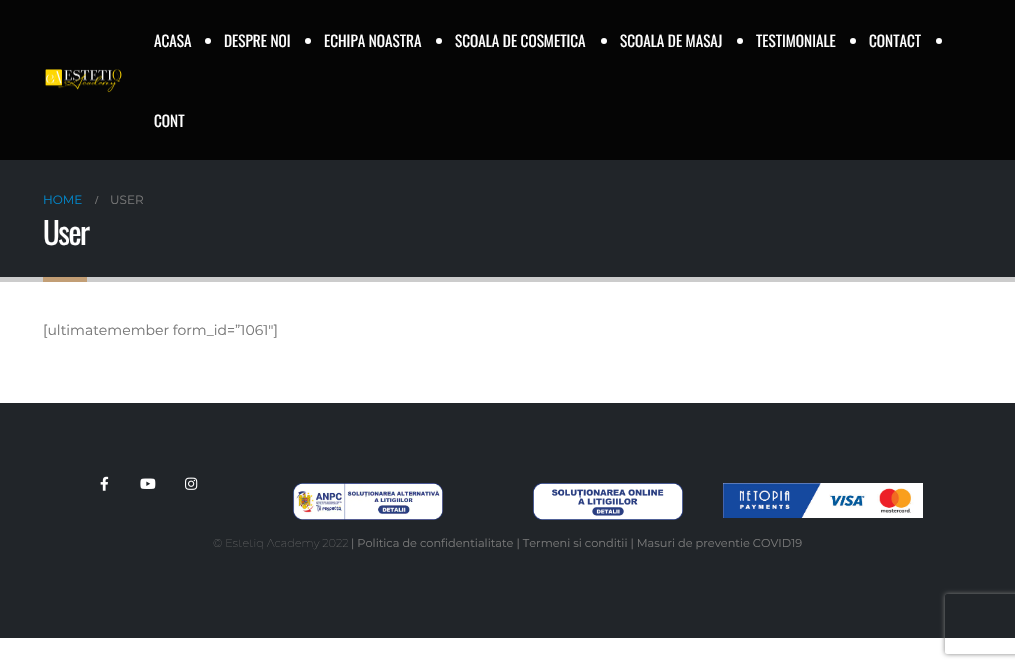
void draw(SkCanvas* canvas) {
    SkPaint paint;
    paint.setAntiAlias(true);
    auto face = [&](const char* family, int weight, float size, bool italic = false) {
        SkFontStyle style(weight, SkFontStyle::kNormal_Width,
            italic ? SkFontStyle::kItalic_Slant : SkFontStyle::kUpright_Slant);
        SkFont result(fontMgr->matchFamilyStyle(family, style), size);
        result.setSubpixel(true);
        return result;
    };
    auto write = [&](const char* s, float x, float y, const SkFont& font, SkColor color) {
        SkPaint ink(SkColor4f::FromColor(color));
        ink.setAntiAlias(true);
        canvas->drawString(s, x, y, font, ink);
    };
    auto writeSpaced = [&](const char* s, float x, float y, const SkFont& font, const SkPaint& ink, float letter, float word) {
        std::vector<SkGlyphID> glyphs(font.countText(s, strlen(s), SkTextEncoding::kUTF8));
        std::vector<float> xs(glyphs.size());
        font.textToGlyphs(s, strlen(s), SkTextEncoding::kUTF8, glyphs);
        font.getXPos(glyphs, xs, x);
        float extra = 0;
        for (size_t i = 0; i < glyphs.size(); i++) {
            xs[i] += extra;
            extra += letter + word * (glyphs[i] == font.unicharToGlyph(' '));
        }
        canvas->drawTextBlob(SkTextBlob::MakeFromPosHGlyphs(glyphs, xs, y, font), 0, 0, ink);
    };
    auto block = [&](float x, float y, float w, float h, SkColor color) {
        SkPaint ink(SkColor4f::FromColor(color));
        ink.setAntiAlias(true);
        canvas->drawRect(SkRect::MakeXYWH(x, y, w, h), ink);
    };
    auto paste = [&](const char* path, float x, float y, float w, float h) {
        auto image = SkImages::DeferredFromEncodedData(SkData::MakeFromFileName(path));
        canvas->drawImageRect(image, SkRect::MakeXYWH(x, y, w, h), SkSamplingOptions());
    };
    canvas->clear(SK_ColorWHITE);
    block(0, 0, 1015, 160, SkColorSetRGB(5, 5, 5));
    paste("pic1.png", 45, 69, 77, 24);
    auto kFont1 = face("Oswald", 400, 15.25f);
    write("ACASA", 154, 47, kFont1, SK_ColorWHITE);
    paint.setColor(SK_ColorWHITE);
    canvas->drawCircle(208, 41, 3, paint);
    write("DESPRE NOI", 224, 47, kFont1, SK_ColorWHITE);
    canvas->drawCircle(308, 41, 3, paint);
    write("ECHIPA NOASTRA", 324, 47, kFont1, SK_ColorWHITE);
    canvas->drawCircle(439, 41, 3, paint);
    write("SCOALA DE COSMETICA", 455, 47, kFont1, SK_ColorWHITE);
    canvas->drawCircle(604, 41, 3, paint);
    write("SCOALA DE MASAJ", 620, 47, kFont1, SK_ColorWHITE);
    canvas->drawCircle(740, 41, 3, paint);
    write("TESTIMONIALE", 756, 47, kFont1, SK_ColorWHITE);
    canvas->drawCircle(853, 41, 3, paint);
    write("CONTACT", 869, 47, kFont1, SK_ColorWHITE);
    canvas->drawCircle(939, 41, 3, paint);
    write("CONT", 154, 127, kFont1, SK_ColorWHITE);
    block(0, 160, 1015, 117, SkColorSetRGB(33, 37, 41));
    block(0, 277, 1015, 5, SkColorSetRGB(204, 204, 204));
    auto kFont2 = face("Montserrat", 400, 12);
    write("HOME", 43, 204, kFont2, SkColorSetRGB(0, 136, 204));
    auto kFont3 = face("Liberation Serif", 700, 12);
    write("/", 95, 204, kFont3, SkColorSetRGB(119, 119, 119));
    write("USER", 110, 204, kFont2, SkColorSetRGB(119, 119, 119));
    auto kFont4 = face("Oswald", 400, 31);
    writeSpaced("User", 43, 245, kFont4, paint, -1.5f, 0);
    block(43, 277, 44, 5, SkColorSetRGB(194, 158, 117));
    auto kFont5 = face("Montserrat", 400, 14);
    write("[ultimatemember form_id=”1061″]", 43, 335, kFont5, SkColorSetRGB(119, 119, 119));
    block(0, 403, 1015, 235, SkColorSetRGB(33, 37, 41));
    paste("pic2.png", 100, 476, 9, 15);
    paste("pic3.png", 140, 478, 16, 11);
    paste("pic4.png", 185, 477, 13, 13);
    paste("pic5.png", 293, 483, 150, 37);
    paste("pic6.png", 533, 483, 150, 37);
    paste("pic7.png", 723, 483, 200, 35);
    auto kFont6 = face("Montserrat", 100, 11.35f);
    write("© Estetiq Academy 2022", 213, 547, kFont6, SkColorSetRGB(119, 119, 119));
    auto kFont7 = face("Montserrat", 400, 11.35f);
    write("| Politica de confidentialitate | Termeni si conditii | Masuri de preventie COVID19", 351, 547, kFont7, SkColorSetRGB(119, 119, 119));
    canvas->save();
    canvas->clipPath(SkPathBuilder(SkPathFillType::kEvenOdd).moveTo(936, 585).lineTo(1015, 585).lineTo(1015, 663).lineTo(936, 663).close().moveTo(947, 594).lineTo(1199, 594).cubicTo(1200, 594, 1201, 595, 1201, 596).lineTo(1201, 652).cubicTo(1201, 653, 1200, 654, 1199, 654).lineTo(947, 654).cubicTo(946, 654, 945, 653, 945, 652).lineTo(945, 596).cubicTo(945, 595, 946, 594, 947, 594).close().detach(), true);
    paint.setColor(SkColorSetRGB(128, 128, 128));
    paint.setMaskFilter(SkMaskFilter::MakeBlur(kNormal_SkBlurStyle, 2.5f));
    canvas->drawRoundRect(SkRect::MakeXYWH(945, 594, 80, 60), 2, 2, paint);
    paint.setMaskFilter(nullptr);
    canvas->restore();
}
